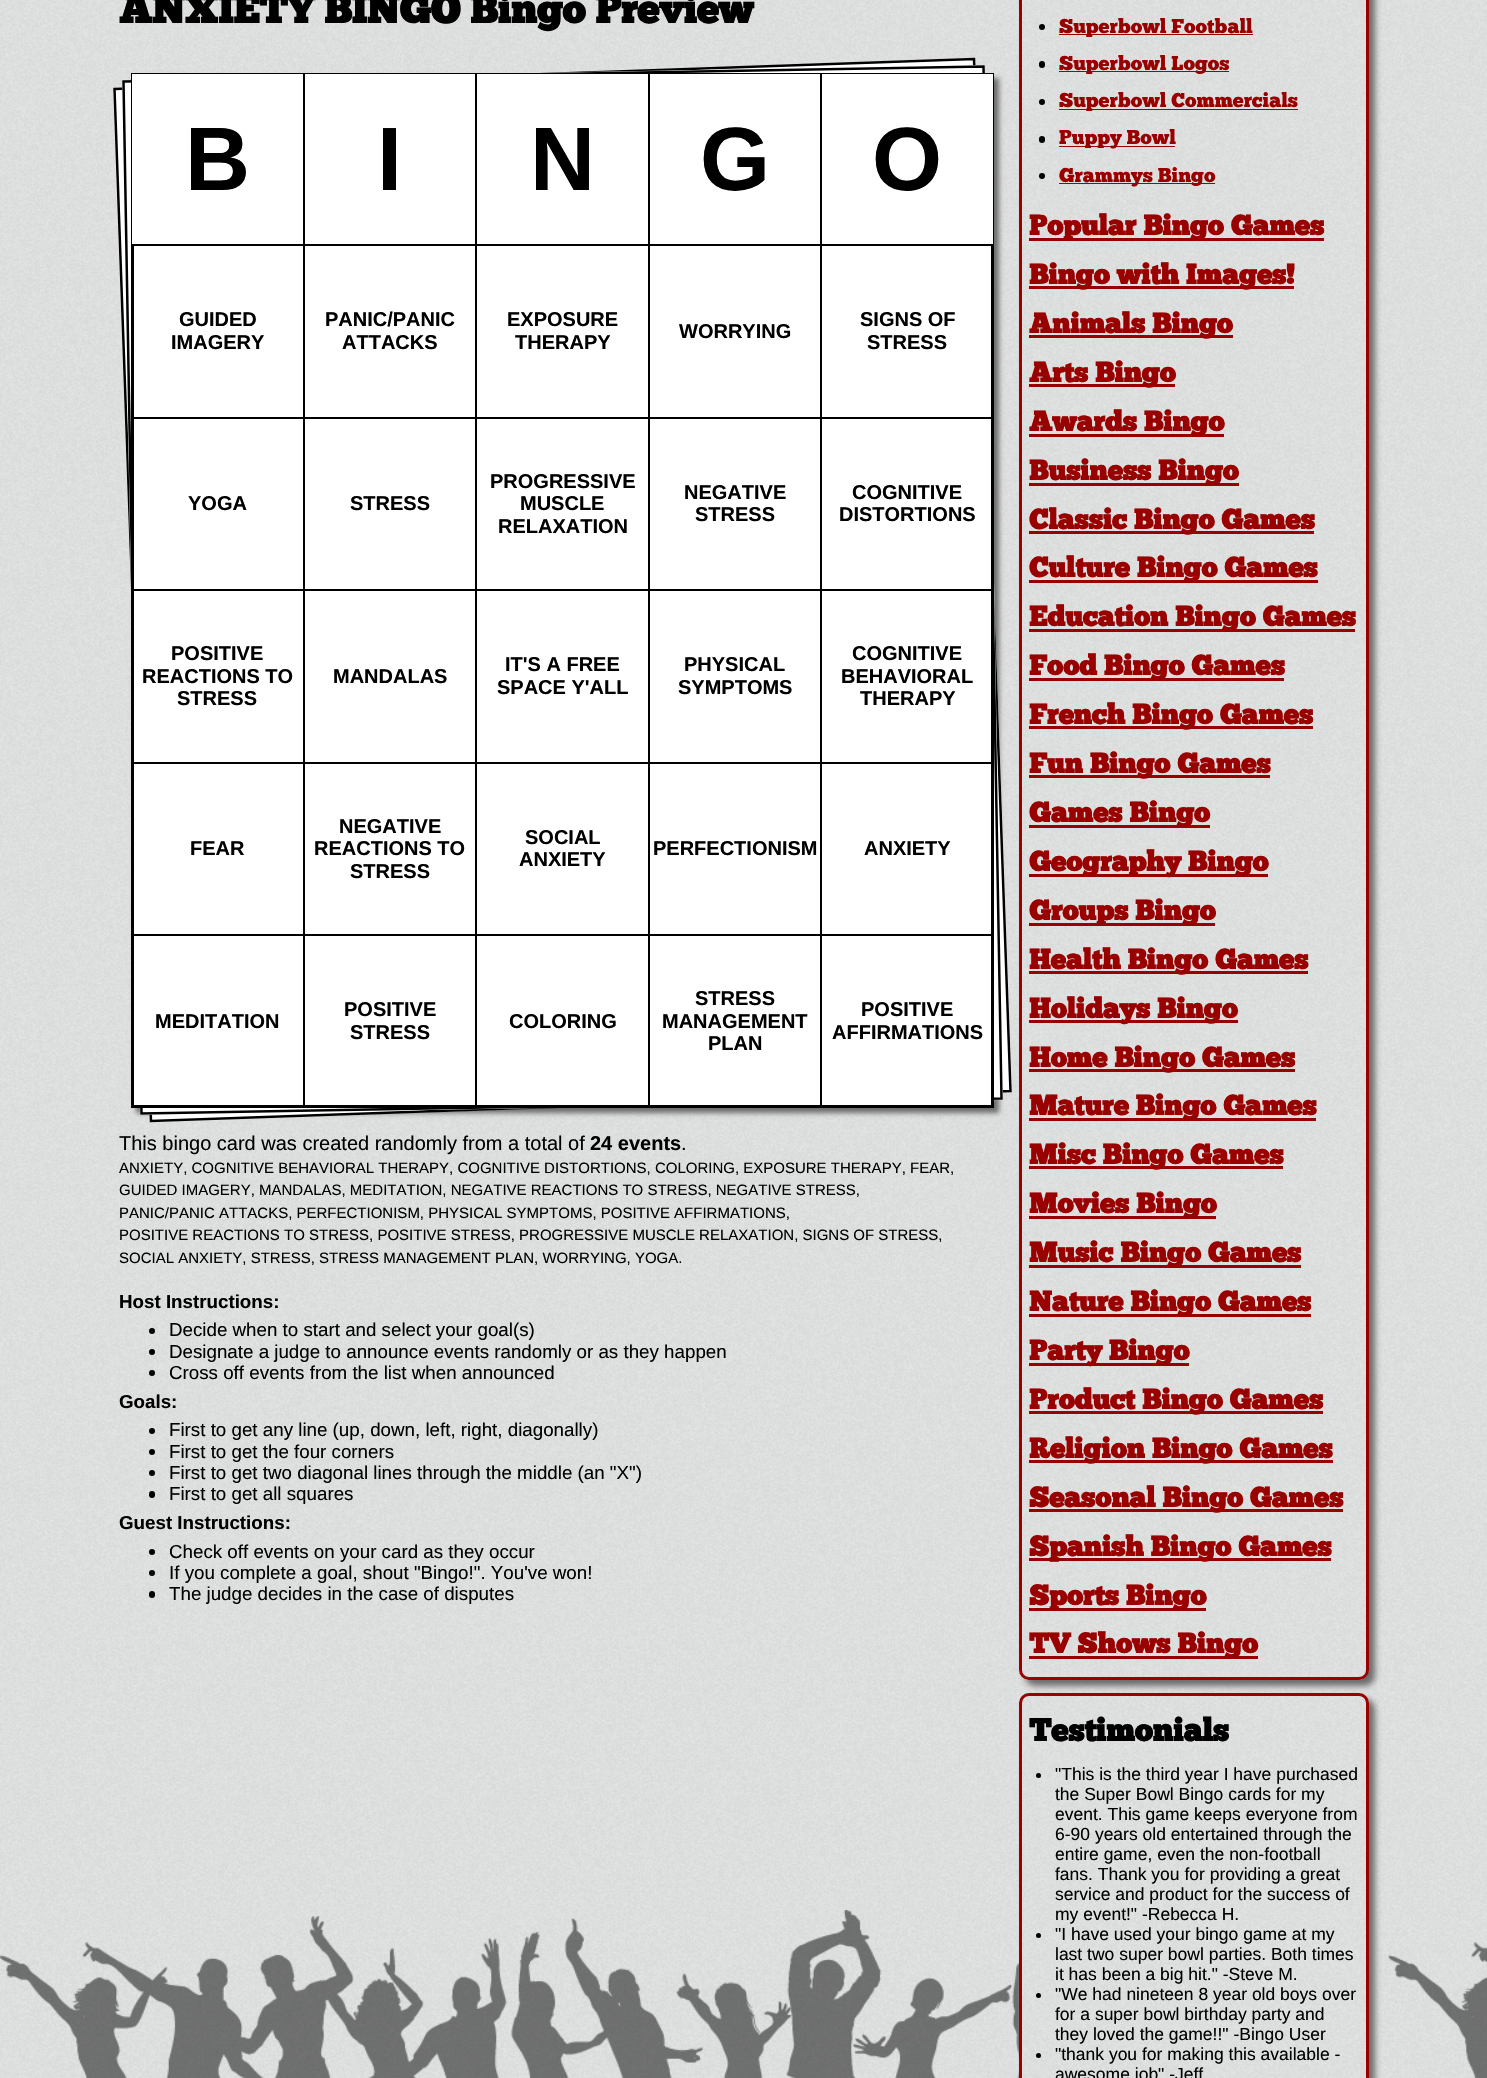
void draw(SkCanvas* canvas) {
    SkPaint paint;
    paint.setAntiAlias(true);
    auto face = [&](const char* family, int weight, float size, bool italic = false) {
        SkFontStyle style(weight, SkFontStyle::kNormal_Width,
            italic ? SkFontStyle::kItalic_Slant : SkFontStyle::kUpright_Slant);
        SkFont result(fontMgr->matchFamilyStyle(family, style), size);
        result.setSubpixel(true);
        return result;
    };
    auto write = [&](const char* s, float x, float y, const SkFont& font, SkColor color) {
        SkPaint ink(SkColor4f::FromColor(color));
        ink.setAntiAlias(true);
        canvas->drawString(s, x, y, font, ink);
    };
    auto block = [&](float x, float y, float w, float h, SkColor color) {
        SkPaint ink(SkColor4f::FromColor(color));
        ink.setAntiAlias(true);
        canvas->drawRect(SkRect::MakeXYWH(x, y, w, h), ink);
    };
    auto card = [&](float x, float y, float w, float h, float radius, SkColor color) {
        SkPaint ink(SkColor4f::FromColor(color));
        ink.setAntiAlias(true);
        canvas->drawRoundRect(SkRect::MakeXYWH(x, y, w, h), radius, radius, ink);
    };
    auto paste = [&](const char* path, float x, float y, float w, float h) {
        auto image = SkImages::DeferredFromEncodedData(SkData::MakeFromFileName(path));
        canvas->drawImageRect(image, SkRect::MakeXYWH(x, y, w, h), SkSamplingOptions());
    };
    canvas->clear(SK_ColorWHITE);
    paste("pic1.png", 0, 0, 1487, 2078);
    auto kFont1 = face("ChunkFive", 700, 40);
    write("ANXIETY BINGO Bingo Preview", 119, 23, kFont1, SK_ColorBLACK);
    paint.setColor(SkColorSetRGB(108, 108, 108));
    paint.setMaskFilter(SkMaskFilter::MakeBlur(kNormal_SkBlurStyle, 2.5f));
    canvas->drawRect(SkRect::MakeXYWH(136, 78, 863, 1035), paint);
    paint.setMaskFilter(nullptr);
    paint.setColor(SK_ColorWHITE);
    canvas->drawPath(SkPathBuilder().moveTo(113, 88).lineTo(975, 58).lineTo(1012, 1092).lineTo(150, 1122).close().detach(), paint);
    paint.setStyle(SkPaint::kStroke_Style);
    paint.setStrokeWidth(2.5f);
    paint.setColor(SK_ColorBLACK);
    canvas->drawPath(SkPathBuilder().moveTo(114.5f, 89).lineTo(974, 59).lineTo(1010.5f, 1091).lineTo(151, 1121).close().detach(), paint);
    paint.setStyle(SkPaint::kFill_Style);
    paint.setColor(SK_ColorWHITE);
    canvas->drawPath(SkPathBuilder().moveTo(122, 80).lineTo(985, 65).lineTo(1003, 1100).lineTo(140, 1115).close().detach(), paint);
    paint.setStyle(SkPaint::kStroke_Style);
    paint.setColor(SK_ColorBLACK);
    canvas->drawPath(SkPathBuilder().moveTo(123.5f, 81.5f).lineTo(983.5f, 66.5f).lineTo(1001.5f, 1098.5f).lineTo(141.5f, 1113.5f).close().detach(), paint);
    paint.setStrokeWidth(1);
    canvas->drawRect(SkRect::MakeXYWH(131.5f, 245.5f, 172, 172), paint);
    canvas->drawRect(SkRect::MakeXYWH(304.5f, 245.5f, 171, 172), paint);
    canvas->drawRect(SkRect::MakeXYWH(476.5f, 245.5f, 172, 172), paint);
    canvas->drawRect(SkRect::MakeXYWH(649.5f, 245.5f, 171, 172), paint);
    block(985, 246, 6, 171, SK_ColorWHITE);
    canvas->drawRect(SkRect::MakeXYWH(821.5f, 245.5f, 172, 172), paint);
    canvas->drawRect(SkRect::MakeXYWH(131.5f, 418.5f, 172, 171), paint);
    canvas->drawRect(SkRect::MakeXYWH(304.5f, 418.5f, 171, 171), paint);
    canvas->drawRect(SkRect::MakeXYWH(476.5f, 418.5f, 172, 171), paint);
    canvas->drawRect(SkRect::MakeXYWH(649.5f, 418.5f, 171, 171), paint);
    block(988, 419, 3, 149, SK_ColorWHITE);
    canvas->drawRect(SkRect::MakeXYWH(821.5f, 418.5f, 172, 171), paint);
    block(134, 613, 3, 149, SK_ColorWHITE);
    canvas->drawRect(SkRect::MakeXYWH(131.5f, 590.5f, 172, 172), paint);
    canvas->drawRect(SkRect::MakeXYWH(304.5f, 590.5f, 171, 172), paint);
    canvas->drawRect(SkRect::MakeXYWH(476.5f, 590.5f, 172, 172), paint);
    canvas->drawRect(SkRect::MakeXYWH(649.5f, 590.5f, 171, 172), paint);
    canvas->drawRect(SkRect::MakeXYWH(821.5f, 590.5f, 172, 172), paint);
    block(134, 764, 6, 170, SK_ColorWHITE);
    canvas->drawRect(SkRect::MakeXYWH(131.5f, 763.5f, 172, 171), paint);
    canvas->drawRect(SkRect::MakeXYWH(304.5f, 763.5f, 171, 171), paint);
    canvas->drawRect(SkRect::MakeXYWH(476.5f, 763.5f, 172, 171), paint);
    canvas->drawRect(SkRect::MakeXYWH(649.5f, 763.5f, 171, 171), paint);
    canvas->drawRect(SkRect::MakeXYWH(821.5f, 763.5f, 172, 171), paint);
    block(134, 936, 9, 169, SK_ColorWHITE);
    canvas->drawRect(SkRect::MakeXYWH(131.5f, 935.5f, 172, 172), paint);
    canvas->drawRect(SkRect::MakeXYWH(304.5f, 935.5f, 171, 172), paint);
    block(560, 1103, 88, 2, SK_ColorWHITE);
    canvas->drawRect(SkRect::MakeXYWH(476.5f, 935.5f, 172, 172), paint);
    block(650, 1100, 170, 5, SK_ColorWHITE);
    canvas->drawRect(SkRect::MakeXYWH(649.5f, 935.5f, 171, 172), paint);
    block(822, 1097, 169, 8, SK_ColorWHITE);
    canvas->drawRect(SkRect::MakeXYWH(821.5f, 935.5f, 172, 172), paint);
    paint.setStrokeWidth(3);
    canvas->drawRect(SkRect::MakeXYWH(132.5f, 74.5f, 860, 1032), paint);
    block(132, 74, 171, 170, SK_ColorWHITE);
    paint.setStrokeWidth(1);
    canvas->drawRect(SkRect::MakeXYWH(131.5f, 73.5f, 172, 171), paint);
    auto kFont2 = face("Liberation Sans", 700, 90);
    write("B", 185, 190, kFont2, SK_ColorBLACK);
    block(305, 74, 170, 6, SK_ColorWHITE);
    canvas->drawRect(SkRect::MakeXYWH(304.5f, 73.5f, 171, 171), paint);
    write("I", 377, 190, kFont2, SK_ColorBLACK);
    block(477, 74, 171, 3, SK_ColorWHITE);
    canvas->drawRect(SkRect::MakeXYWH(476.5f, 73.5f, 172, 171), paint);
    write("N", 530, 190, kFont2, SK_ColorBLACK);
    block(650, 74, 170, 2, SK_ColorWHITE);
    canvas->drawRect(SkRect::MakeXYWH(649.5f, 73.5f, 171, 171), paint);
    write("G", 700, 190, kFont2, SK_ColorBLACK);
    block(822, 74, 171, 170, SK_ColorWHITE);
    canvas->drawRect(SkRect::MakeXYWH(821.5f, 73.5f, 172, 171), paint);
    write("O", 872, 190, kFont2, SK_ColorBLACK);
    auto kFont3 = face("Liberation Sans", 700, 20);
    write("GUIDED", 179, 326, kFont3, SK_ColorBLACK);
    write("IMAGERY", 171, 349, kFont3, SK_ColorBLACK);
    write("PANIC/PANIC", 325, 326, kFont3, SK_ColorBLACK);
    write("ATTACKS", 342, 349, kFont3, SK_ColorBLACK);
    write("EXPOSURE", 507, 326, kFont3, SK_ColorBLACK);
    write("THERAPY", 515, 349, kFont3, SK_ColorBLACK);
    write("WORRYING", 679, 338, kFont3, SK_ColorBLACK);
    write("SIGNS OF", 860, 326, kFont3, SK_ColorBLACK);
    write("STRESS", 867, 349, kFont3, SK_ColorBLACK);
    write("YOGA", 188, 510, kFont3, SK_ColorBLACK);
    write("STRESS", 350, 510, kFont3, SK_ColorBLACK);
    write("PROGRESSIVE", 490, 488, kFont3, SK_ColorBLACK);
    write("MUSCLE", 520, 510, kFont3, SK_ColorBLACK);
    write("RELAXATION", 498, 533, kFont3, SK_ColorBLACK);
    write("NEGATIVE", 684, 499, kFont3, SK_ColorBLACK);
    write("STRESS", 695, 521, kFont3, SK_ColorBLACK);
    write("COGNITIVE", 852, 499, kFont3, SK_ColorBLACK);
    write("DISTORTIONS", 839, 521, kFont3, SK_ColorBLACK);
    write("POSITIVE", 171, 660, kFont3, SK_ColorBLACK);
    write("REACTIONS TO", 142, 683, kFont3, SK_ColorBLACK);
    write("STRESS", 177, 705, kFont3, SK_ColorBLACK);
    write("MANDALAS", 333, 683, kFont3, SK_ColorBLACK);
    write("IT'S A FREE", 505, 671, kFont3, SK_ColorBLACK);
    write("SPACE Y'ALL", 497, 694, kFont3, SK_ColorBLACK);
    write("PHYSICAL", 684, 671, kFont3, SK_ColorBLACK);
    write("SYMPTOMS", 678, 694, kFont3, SK_ColorBLACK);
    write("COGNITIVE", 852, 660, kFont3, SK_ColorBLACK);
    write("BEHAVIORAL", 841, 683, kFont3, SK_ColorBLACK);
    write("THERAPY", 860, 705, kFont3, SK_ColorBLACK);
    write("FEAR", 190, 855, kFont3, SK_ColorBLACK);
    write("NEGATIVE", 339, 833, kFont3, SK_ColorBLACK);
    write("REACTIONS TO", 314, 855, kFont3, SK_ColorBLACK);
    write("STRESS", 350, 878, kFont3, SK_ColorBLACK);
    write("SOCIAL", 525, 844, kFont3, SK_ColorBLACK);
    write("ANXIETY", 519, 866, kFont3, SK_ColorBLACK);
    write("PERFECTIONISM", 653, 855, kFont3, SK_ColorBLACK);
    write("ANXIETY", 864, 855, kFont3, SK_ColorBLACK);
    write("MEDITATION", 155, 1028, kFont3, SK_ColorBLACK);
    write("POSITIVE", 344, 1016, kFont3, SK_ColorBLACK);
    write("STRESS", 350, 1039, kFont3, SK_ColorBLACK);
    write("COLORING", 509, 1028, kFont3, SK_ColorBLACK);
    write("STRESS", 695, 1005, kFont3, SK_ColorBLACK);
    write("MANAGEMENT", 662, 1028, kFont3, SK_ColorBLACK);
    write("PLAN", 708, 1050, kFont3, SK_ColorBLACK);
    write("POSITIVE", 861, 1016, kFont3, SK_ColorBLACK);
    write("AFFIRMATIONS", 832, 1039, kFont3, SK_ColorBLACK);
    auto kFont4 = face("Liberation Sans", 400, 20);
    write("This bingo card was created randomly from a total of", 119, 1150, kFont4, SK_ColorBLACK);
    write("24 events", 590, 1150, kFont3, SK_ColorBLACK);
    write(".", 681, 1150, kFont4, SK_ColorBLACK);
    auto kFont5 = face("Liberation Sans", 400, 15);
    write("ANXIETY, COGNITIVE BEHAVIORAL THERAPY, COGNITIVE DISTORTIONS, COLORING, EXPOSURE THERAPY, FEAR,", 119, 1173, kFont5, SK_ColorBLACK);
    write("GUIDED IMAGERY, MANDALAS, MEDITATION, NEGATIVE REACTIONS TO STRESS, NEGATIVE STRESS,", 119, 1195, kFont5, SK_ColorBLACK);
    write("PANIC/PANIC ATTACKS, PERFECTIONISM, PHYSICAL SYMPTOMS, POSITIVE AFFIRMATIONS,", 119, 1218, kFont5, SK_ColorBLACK);
    write("POSITIVE REACTIONS TO STRESS, POSITIVE STRESS, PROGRESSIVE MUSCLE RELAXATION, SIGNS OF STRESS,", 119, 1240, kFont5, SK_ColorBLACK);
    write("SOCIAL ANXIETY, STRESS, STRESS MANAGEMENT PLAN, WORRYING, YOGA.", 119, 1263, kFont5, SK_ColorBLACK);
    auto kFont6 = face("Liberation Sans", 700, 18.75f);
    write("Host Instructions:", 119, 1308, kFont6, SK_ColorBLACK);
    paint.setStyle(SkPaint::kFill_Style);
    canvas->drawCircle(152, 1331, 3, paint);
    auto kFont7 = face("Liberation Sans", 400, 18.75f);
    write("Decide when to start and select your goal(s)", 169, 1336, kFont7, SK_ColorBLACK);
    canvas->drawCircle(152, 1352, 3, paint);
    write("Designate a judge to announce events randomly or as they happen", 169, 1358, kFont7, SK_ColorBLACK);
    canvas->drawCircle(152, 1373, 3, paint);
    write("Cross off events from the list when announced", 169, 1379, kFont7, SK_ColorBLACK);
    write("Goals:", 119, 1408, kFont6, SK_ColorBLACK);
    canvas->drawCircle(152, 1431, 3, paint);
    write("First to get any line (up, down, left, right, diagonally)", 169, 1436, kFont7, SK_ColorBLACK);
    canvas->drawCircle(152, 1452, 3, paint);
    write("First to get the four corners", 169, 1458, kFont7, SK_ColorBLACK);
    canvas->drawCircle(152, 1473, 3, paint);
    write("First to get two diagonal lines through the middle (an \"X\")", 169, 1479, kFont7, SK_ColorBLACK);
    card(149, 1491, 6, 7, 3, SK_ColorBLACK);
    write("First to get all squares", 169, 1500, kFont7, SK_ColorBLACK);
    write("Guest Instructions:", 119, 1529, kFont6, SK_ColorBLACK);
    canvas->drawCircle(152, 1552, 3, paint);
    write("Check off events on your card as they occur", 169, 1558, kFont7, SK_ColorBLACK);
    canvas->drawCircle(152, 1573, 3, paint);
    write("If you complete a goal, shout \"Bingo!\". You've won!", 169, 1579, kFont7, SK_ColorBLACK);
    card(149, 1591, 6, 7, 3, SK_ColorBLACK);
    write("The judge decides in the case of disputes", 169, 1600, kFont7, SK_ColorBLACK);
    paint.setColor(SkColorSetRGB(108, 108, 108));
    paint.setMaskFilter(SkMaskFilter::MakeBlur(kNormal_SkBlurStyle, 3));
    canvas->drawRoundRect(SkRect::MakeXYWH(1025, -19, 350, 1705), 10, 10, paint);
    paint.setMaskFilter(nullptr);
    paste("pic2.png", 1019, 0, 350, 1680);
    paint.setStyle(SkPaint::kStroke_Style);
    paint.setStrokeWidth(3);
    paint.setColor(SkColorSetRGB(153, 0, 0));
    canvas->drawRoundRect(SkRect::MakeXYWH(1020.5f, -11.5f, 347, 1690), 8.5f, 8.5f, paint);
    paint.setStyle(SkPaint::kFill_Style);
    paint.setColor(SK_ColorBLACK);
    canvas->drawCircle(1042, 27, 3, paint);
    block(1059, 34, 194, 1, SkColorSetRGB(153, 0, 0));
    auto kFont8 = face("ChunkFive", 400, 20);
    write("Superbowl Football", 1059, 33, kFont8, SkColorSetRGB(153, 0, 0));
    card(1039, 61, 6, 7, 3, SK_ColorBLACK);
    block(1059, 71, 170, 1, SkColorSetRGB(153, 0, 0));
    write("Superbowl Logos", 1059, 70, kFont8, SkColorSetRGB(153, 0, 0));
    canvas->drawCircle(1042, 102, 3, paint);
    block(1059, 109, 239, 1, SkColorSetRGB(153, 0, 0));
    write("Superbowl Commercials", 1059, 107, kFont8, SkColorSetRGB(153, 0, 0));
    card(1039, 136, 6, 7, 3, SK_ColorBLACK);
    block(1059, 146, 116, 1, SkColorSetRGB(153, 0, 0));
    write("Puppy Bowl", 1059, 144, kFont8, SkColorSetRGB(153, 0, 0));
    canvas->drawCircle(1042, 176, 3, paint);
    block(1059, 183, 156, 1, SkColorSetRGB(153, 0, 0));
    write("Grammys Bingo", 1059, 182, kFont8, SkColorSetRGB(153, 0, 0));
    block(1029, 238, 295, 3, SkColorSetRGB(153, 0, 0));
    auto kFont9 = face("ChunkFive", 700, 28);
    write("Popular Bingo Games", 1029, 235, kFont9, SkColorSetRGB(153, 0, 0));
    block(1029, 286, 265, 3, SkColorSetRGB(153, 0, 0));
    write("Bingo with Images!", 1029, 284, kFont9, SkColorSetRGB(153, 0, 0));
    block(1029, 335, 204, 3, SkColorSetRGB(153, 0, 0));
    write("Animals Bingo", 1029, 333, kFont9, SkColorSetRGB(153, 0, 0));
    block(1029, 384, 146, 3, SkColorSetRGB(153, 0, 0));
    write("Arts Bingo", 1029, 382, kFont9, SkColorSetRGB(153, 0, 0));
    block(1029, 434, 195, 3, SkColorSetRGB(153, 0, 0));
    write("Awards Bingo", 1029, 431, kFont9, SkColorSetRGB(153, 0, 0));
    block(1029, 483, 210, 3, SkColorSetRGB(153, 0, 0));
    write("Business Bingo", 1029, 480, kFont9, SkColorSetRGB(153, 0, 0));
    block(1029, 531, 285, 3, SkColorSetRGB(153, 0, 0));
    write("Classic Bingo Games", 1029, 529, kFont9, SkColorSetRGB(153, 0, 0));
    block(1029, 580, 289, 3, SkColorSetRGB(153, 0, 0));
    write("Culture Bingo Games", 1029, 577, kFont9, SkColorSetRGB(153, 0, 0));
    block(1029, 629, 326, 3, SkColorSetRGB(153, 0, 0));
    write("Education Bingo Games", 1029, 626, kFont9, SkColorSetRGB(153, 0, 0));
    block(1029, 678, 255, 3, SkColorSetRGB(153, 0, 0));
    write("Food Bingo Games", 1029, 675, kFont9, SkColorSetRGB(153, 0, 0));
    block(1029, 726, 284, 3, SkColorSetRGB(153, 0, 0));
    write("French Bingo Games", 1029, 724, kFont9, SkColorSetRGB(153, 0, 0));
    block(1029, 775, 241, 3, SkColorSetRGB(153, 0, 0));
    write("Fun Bingo Games", 1029, 773, kFont9, SkColorSetRGB(153, 0, 0));
    block(1029, 825, 181, 3, SkColorSetRGB(153, 0, 0));
    write("Games Bingo", 1029, 822, kFont9, SkColorSetRGB(153, 0, 0));
    block(1029, 874, 239, 3, SkColorSetRGB(153, 0, 0));
    write("Geography Bingo", 1029, 871, kFont9, SkColorSetRGB(153, 0, 0));
    block(1029, 923, 186, 3, SkColorSetRGB(153, 0, 0));
    write("Groups Bingo", 1029, 920, kFont9, SkColorSetRGB(153, 0, 0));
    block(1029, 971, 279, 3, SkColorSetRGB(153, 0, 0));
    write("Health Bingo Games", 1029, 969, kFont9, SkColorSetRGB(153, 0, 0));
    block(1029, 1020, 209, 3, SkColorSetRGB(153, 0, 0));
    write("Holidays Bingo", 1029, 1018, kFont9, SkColorSetRGB(153, 0, 0));
    block(1029, 1069, 266, 3, SkColorSetRGB(153, 0, 0));
    write("Home Bingo Games", 1029, 1067, kFont9, SkColorSetRGB(153, 0, 0));
    block(1029, 1118, 287, 3, SkColorSetRGB(153, 0, 0));
    write("Mature Bingo Games", 1029, 1115, kFont9, SkColorSetRGB(153, 0, 0));
    block(1029, 1166, 254, 3, SkColorSetRGB(153, 0, 0));
    write("Misc Bingo Games", 1029, 1164, kFont9, SkColorSetRGB(153, 0, 0));
    block(1029, 1216, 187, 3, SkColorSetRGB(153, 0, 0));
    write("Movies Bingo", 1029, 1213, kFont9, SkColorSetRGB(153, 0, 0));
    block(1029, 1265, 272, 3, SkColorSetRGB(153, 0, 0));
    write("Music Bingo Games", 1029, 1262, kFont9, SkColorSetRGB(153, 0, 0));
    block(1029, 1314, 282, 3, SkColorSetRGB(153, 0, 0));
    write("Nature Bingo Games", 1029, 1311, kFont9, SkColorSetRGB(153, 0, 0));
    block(1029, 1363, 160, 3, SkColorSetRGB(153, 0, 0));
    write("Party Bingo", 1029, 1360, kFont9, SkColorSetRGB(153, 0, 0));
    block(1029, 1411, 294, 3, SkColorSetRGB(153, 0, 0));
    write("Product Bingo Games", 1029, 1409, kFont9, SkColorSetRGB(153, 0, 0));
    block(1029, 1460, 304, 3, SkColorSetRGB(153, 0, 0));
    write("Religion Bingo Games", 1029, 1458, kFont9, SkColorSetRGB(153, 0, 0));
    block(1029, 1509, 314, 3, SkColorSetRGB(153, 0, 0));
    write("Seasonal Bingo Games", 1029, 1507, kFont9, SkColorSetRGB(153, 0, 0));
    block(1029, 1558, 302, 3, SkColorSetRGB(153, 0, 0));
    write("Spanish Bingo Games", 1029, 1556, kFont9, SkColorSetRGB(153, 0, 0));
    block(1029, 1608, 177, 3, SkColorSetRGB(153, 0, 0));
    write("Sports Bingo", 1029, 1605, kFont9, SkColorSetRGB(153, 0, 0));
    block(1029, 1656, 229, 3, SkColorSetRGB(153, 0, 0));
    write("TV Shows Bingo", 1029, 1653, kFont9, SkColorSetRGB(153, 0, 0));
    paste("pic4.png", 0, 1910, 1487, 168);
    paint.setColor(SkColorSetRGB(108, 108, 108));
    paint.setMaskFilter(SkMaskFilter::MakeBlur(kNormal_SkBlurStyle, 3));
    canvas->drawRoundRect(SkRect::MakeXYWH(1025, 1699, 350, 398), 10, 10, paint);
    paint.setMaskFilter(nullptr);
    paste("pic3.png", 1018, 1693, 351, 385);
    paint.setStyle(SkPaint::kStroke_Style);
    paint.setColor(SkColorSetRGB(153, 0, 0));
    canvas->drawRoundRect(SkRect::MakeXYWH(1020.5f, 1694.5f, 347, 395), 8.5f, 8.5f, paint);
    auto kFont10 = face("ChunkFive", 700, 31.5f);
    write("Testimonials", 1029, 1741, kFont10, SK_ColorBLACK);
    paint.setStyle(SkPaint::kFill_Style);
    paint.setColor(SK_ColorBLACK);
    canvas->drawCircle(1038.5f, 1775.5f, 2.5f, paint);
    auto kFont11 = face("Liberation Sans", 400, 17.5f);
    write("\"This is the third year I have purchased", 1055, 1780, kFont11, SK_ColorBLACK);
    write("the Super Bowl Bingo cards for my", 1055, 1800, kFont11, SK_ColorBLACK);
    write("event. This game keeps everyone from", 1055, 1820, kFont11, SK_ColorBLACK);
    write("6-90 years old entertained through the", 1055, 1840, kFont11, SK_ColorBLACK);
    write("entire game, even the non-football", 1055, 1860, kFont11, SK_ColorBLACK);
    write("fans. Thank you for providing a great", 1055, 1880, kFont11, SK_ColorBLACK);
    write("service and product for the success of", 1055, 1900, kFont11, SK_ColorBLACK);
    write("my event!\" -Rebecca H.", 1055, 1920, kFont11, SK_ColorBLACK);
    canvas->drawCircle(1038.5f, 1935.5f, 2.5f, paint);
    write("\"I have used your bingo game at my", 1055, 1940, kFont11, SK_ColorBLACK);
    write("last two super bowl parties. Both times", 1055, 1960, kFont11, SK_ColorBLACK);
    write("it has been a big hit.\" -Steve M.", 1055, 1980, kFont11, SK_ColorBLACK);
    canvas->drawCircle(1038.5f, 1995.5f, 2.5f, paint);
    write("\"We had nineteen 8 year old boys over", 1055, 2000, kFont11, SK_ColorBLACK);
    write("for a super bowl birthday party and", 1055, 2020, kFont11, SK_ColorBLACK);
    write("they loved the game!!\" -Bingo User", 1055, 2040, kFont11, SK_ColorBLACK);
    canvas->drawCircle(1038.5f, 2055.5f, 2.5f, paint);
    write("\"thank you for making this available -", 1055, 2060, kFont11, SK_ColorBLACK);
    write("awesome job\" -Jeff", 1055, 2080, kFont11, SK_ColorBLACK);
}
